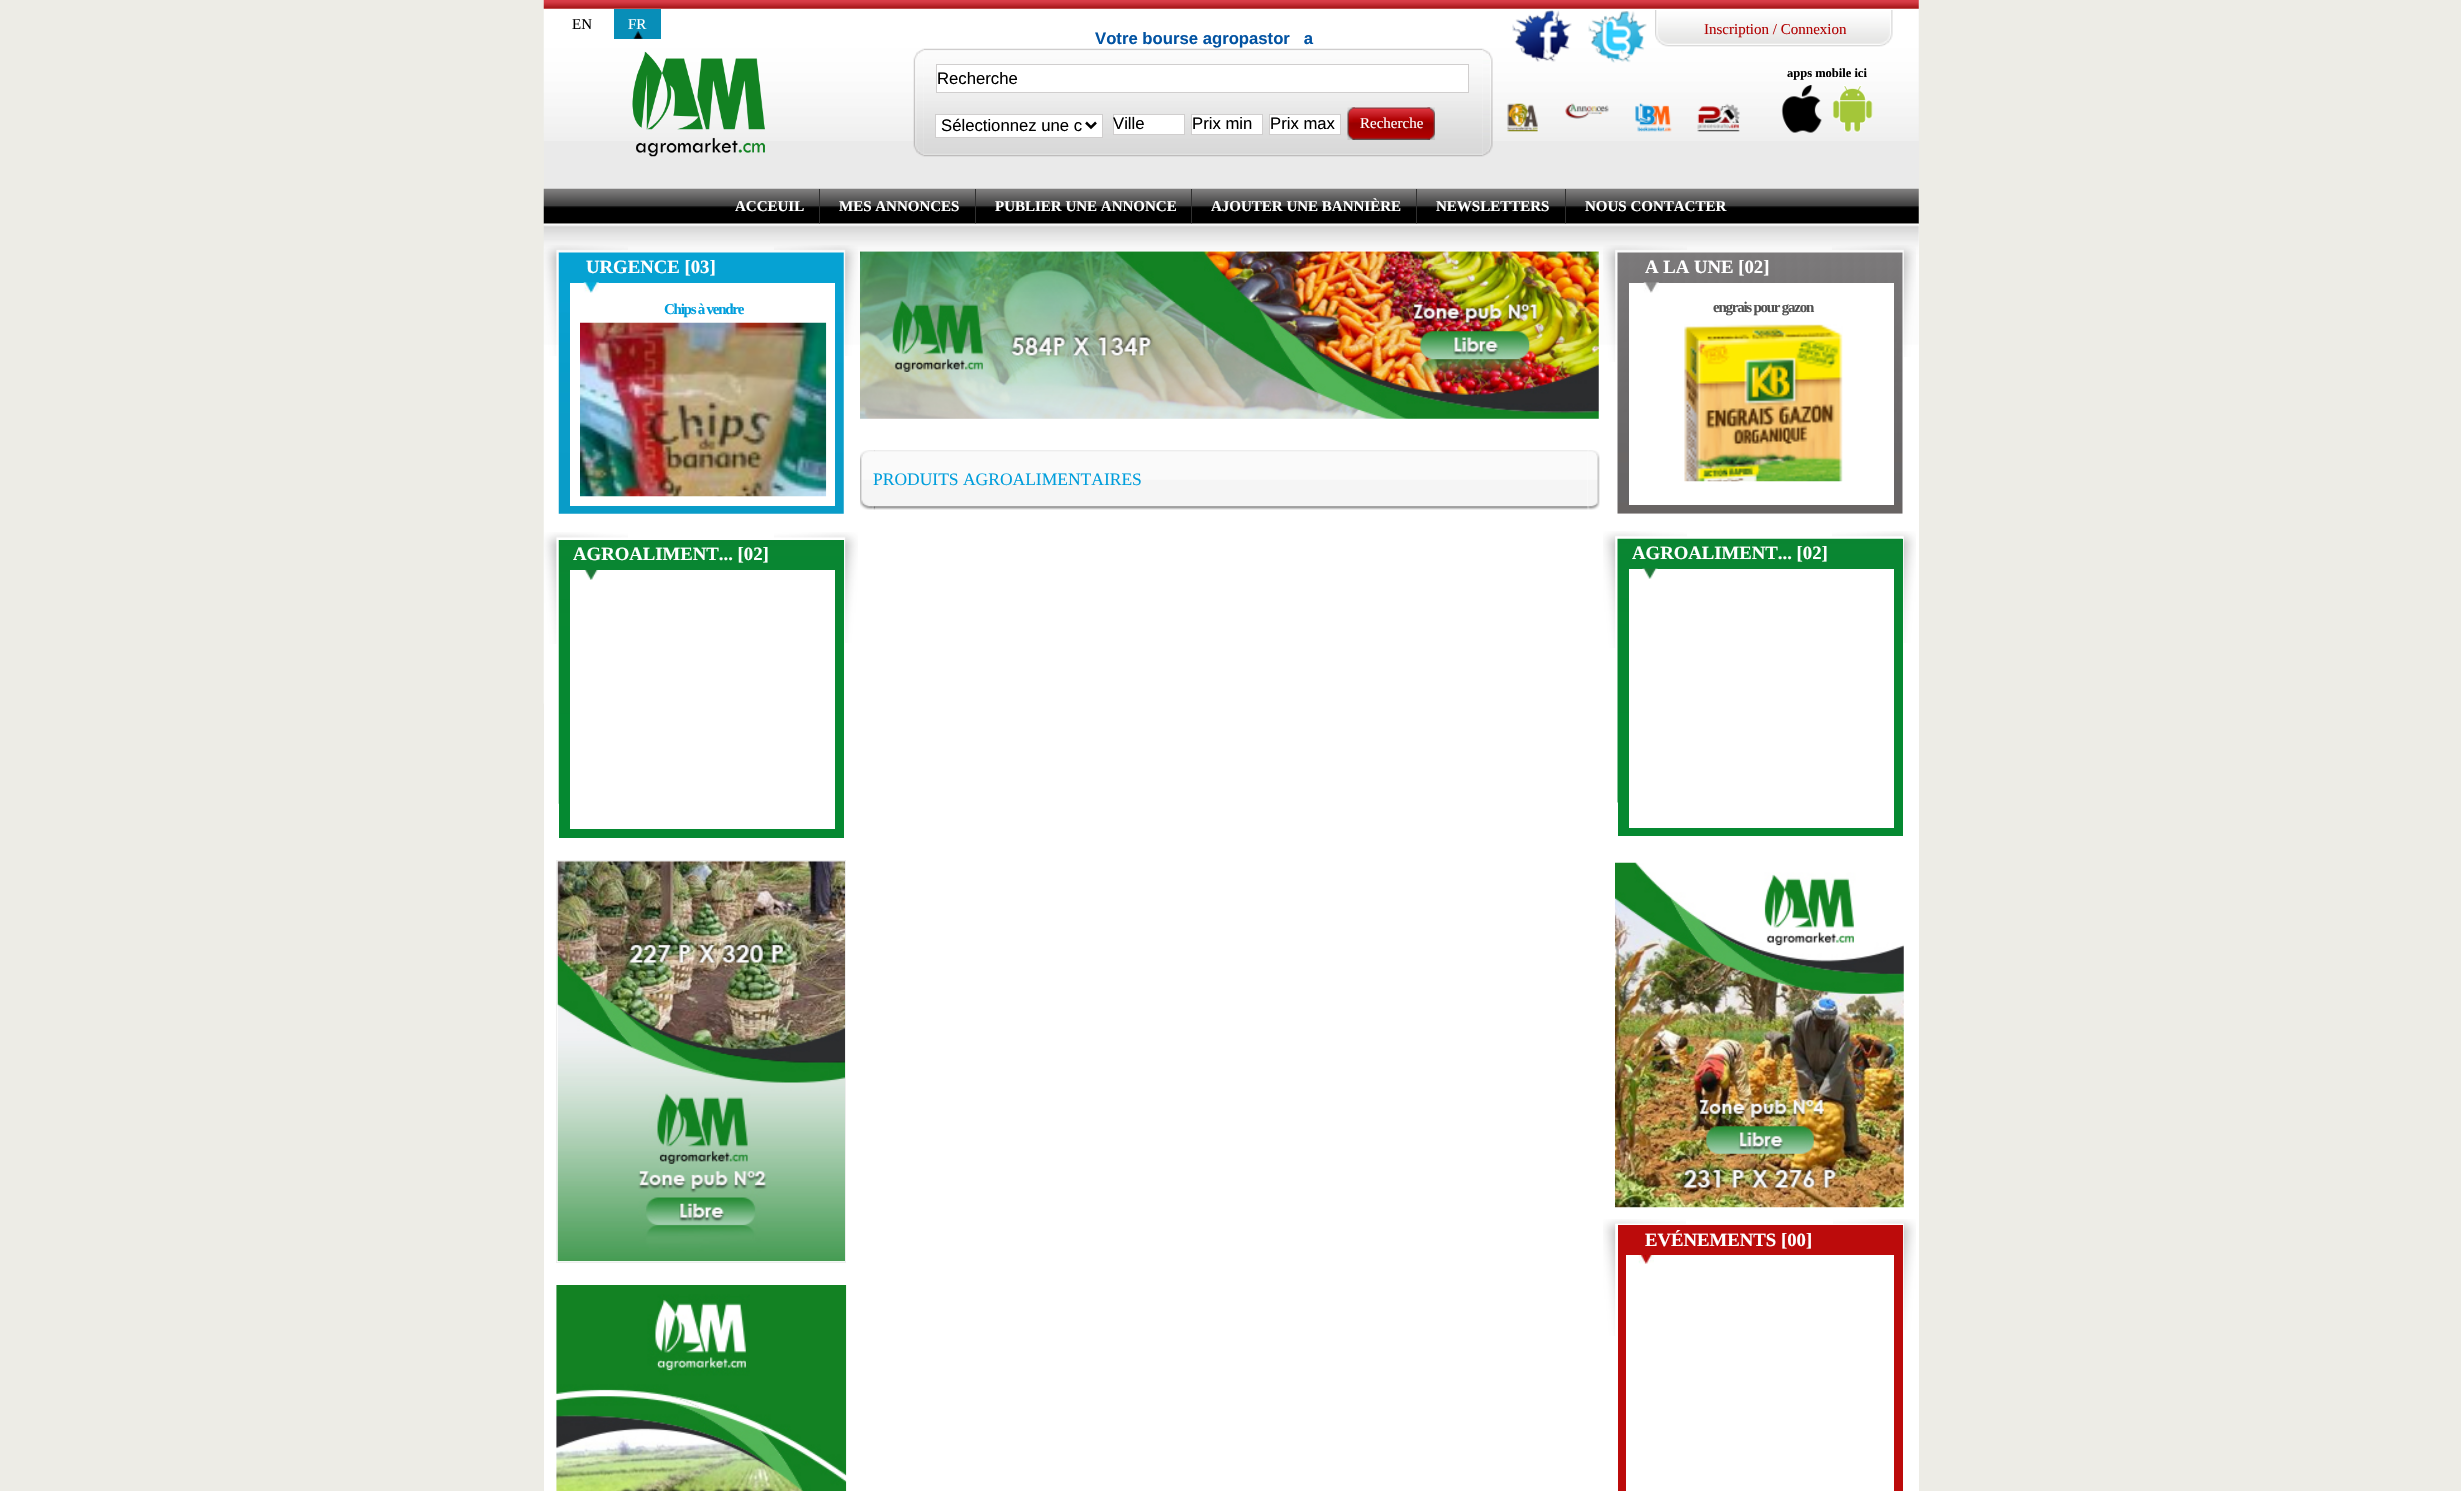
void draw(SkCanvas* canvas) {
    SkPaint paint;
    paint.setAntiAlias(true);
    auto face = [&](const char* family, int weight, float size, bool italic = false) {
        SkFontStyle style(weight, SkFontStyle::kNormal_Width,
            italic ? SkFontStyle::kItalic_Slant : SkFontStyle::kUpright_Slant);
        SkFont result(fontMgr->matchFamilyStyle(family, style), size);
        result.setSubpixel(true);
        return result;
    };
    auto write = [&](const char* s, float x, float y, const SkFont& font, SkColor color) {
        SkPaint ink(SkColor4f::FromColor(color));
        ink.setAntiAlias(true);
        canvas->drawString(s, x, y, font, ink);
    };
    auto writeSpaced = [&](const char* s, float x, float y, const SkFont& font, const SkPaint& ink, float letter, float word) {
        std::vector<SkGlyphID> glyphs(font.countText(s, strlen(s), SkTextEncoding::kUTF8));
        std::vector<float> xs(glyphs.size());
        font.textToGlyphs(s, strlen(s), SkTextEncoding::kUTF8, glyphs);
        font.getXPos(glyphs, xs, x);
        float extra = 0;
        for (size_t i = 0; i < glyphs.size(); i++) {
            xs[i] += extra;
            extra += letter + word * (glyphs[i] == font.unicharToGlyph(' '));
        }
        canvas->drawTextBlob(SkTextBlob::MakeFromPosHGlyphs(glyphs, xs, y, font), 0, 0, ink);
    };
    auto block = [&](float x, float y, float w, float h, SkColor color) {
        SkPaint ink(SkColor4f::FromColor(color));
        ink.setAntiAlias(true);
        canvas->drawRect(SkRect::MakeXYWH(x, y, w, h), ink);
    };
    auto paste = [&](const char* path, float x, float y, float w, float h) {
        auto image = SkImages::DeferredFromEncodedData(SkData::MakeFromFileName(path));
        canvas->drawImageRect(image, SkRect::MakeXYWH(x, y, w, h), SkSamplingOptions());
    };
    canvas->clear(SkColorSetRGB(237, 236, 230));
    block(544, 0, 1375, 189, SkColorSetRGB(234, 234, 234));
    paste("pic1.png", 543, 0, 1376, 141);
    auto kFont1 = face("Liberation Serif", 400, 15);
    write("EN", 572, 29, kFont1, SK_ColorBLACK);
    block(614, 9, 47, 30, SkColorSetRGB(8, 142, 184));
    paste("pic2.png", 633, 31, 10, 8);
    write("FR", 628, 29, kFont1, SK_ColorWHITE);
    paste("pic3.png", 632, 51, 133, 106);
    auto kFont2 = face("Liberation Sans", 700, 16.7f);
    write("Votre bourse agropastor   a", 1095, 44, kFont2, SkColorSetRGB(2, 83, 162));
    paste("pic4.png", 913, 48, 11, 109);
    paste("pic5.png", 1482, 48, 11, 109);
    paste("pic6.png", 923, 48, 560, 109);
    paint.setColor(SK_ColorWHITE);
    canvas->drawRect(SkRect::MakeXYWH(936.5f, 64.5f, 532, 28), paint);
    paint.setStyle(SkPaint::kStroke_Style);
    paint.setStrokeWidth(1);
    paint.setColor(SkColorSetRGB(208, 206, 206));
    canvas->drawRect(SkRect::MakeXYWH(936.5f, 64.5f, 532, 28), paint);
    auto kFont3 = face("Liberation Sans", 400, 16.7f);
    write("Recherche", 937, 84, kFont3, SK_ColorBLACK);
    paint.setStyle(SkPaint::kFill_Style);
    paint.setColor(SK_ColorWHITE);
    canvas->drawRect(SkRect::MakeXYWH(935.5f, 114.5f, 167, 23), paint);
    paint.setStyle(SkPaint::kStroke_Style);
    paint.setColor(SkColorSetRGB(208, 206, 206));
    canvas->drawRect(SkRect::MakeXYWH(935.5f, 114.5f, 167, 23), paint);
    paint.setStrokeWidth(2.5f);
    paint.setColor(SK_ColorBLACK);
    canvas->drawPath(SkPathBuilder().moveTo(1086, 122.5f).lineTo(1091, 127.5f).lineTo(1096, 122.5f).detach(), paint);
    write("Sélectionnez une c", 941, 131, kFont3, SK_ColorBLACK);
    paint.setStyle(SkPaint::kFill_Style);
    paint.setColor(SK_ColorWHITE);
    canvas->drawRect(SkRect::MakeXYWH(1113.5f, 114.5f, 71, 20), paint);
    paint.setStyle(SkPaint::kStroke_Style);
    paint.setStrokeWidth(1);
    paint.setColor(SkColorSetRGB(208, 206, 206));
    canvas->drawRect(SkRect::MakeXYWH(1113.5f, 114.5f, 71, 20), paint);
    write("Ville", 1113, 129, kFont3, SK_ColorBLACK);
    paint.setStyle(SkPaint::kFill_Style);
    paint.setColor(SK_ColorWHITE);
    canvas->drawRect(SkRect::MakeXYWH(1191.5f, 114.5f, 71, 20), paint);
    paint.setStyle(SkPaint::kStroke_Style);
    paint.setColor(SkColorSetRGB(208, 206, 206));
    canvas->drawRect(SkRect::MakeXYWH(1191.5f, 114.5f, 71, 20), paint);
    write("Prix min", 1192, 129, kFont3, SK_ColorBLACK);
    paint.setStyle(SkPaint::kFill_Style);
    paint.setColor(SK_ColorWHITE);
    canvas->drawRect(SkRect::MakeXYWH(1269.5f, 114.5f, 71, 20), paint);
    paint.setStyle(SkPaint::kStroke_Style);
    paint.setColor(SkColorSetRGB(208, 206, 206));
    canvas->drawRect(SkRect::MakeXYWH(1269.5f, 114.5f, 71, 20), paint);
    write("Prix max", 1270, 129, kFont3, SK_ColorBLACK);
    paste("pic7.png", 1347, 107, 8, 33);
    paste("pic8.png", 1427, 107, 8, 33);
    paste("pic9.png", 1352, 107, 78, 33);
    write("Recherche", 1360, 128, kFont1, SK_ColorWHITE);
    paste("pic10.png", 1512, 10, 60, 52);
    paste("pic11.png", 1588, 11, 59, 52);
    paste("pic12.png", 1655, 10, 238, 37);
    write("Inscription / Connexion", 1704, 34, kFont1, SkColorSetRGB(178, 3, 3));
    auto kFont4 = face("Liberation Serif", 700, 12.5f);
    write("apps mobile ici", 1787, 77, kFont4, SK_ColorBLACK);
    paste("pic13.png", 1781, 85, 41, 48);
    paste("pic14.png", 1832, 85, 41, 48);
    paste("pic15.png", 1507, 103, 31, 29);
    paste("pic16.png", 1565, 103, 44, 16);
    paste("pic17.png", 1635, 103, 37, 29);
    paste("pic18.png", 1697, 103, 43, 29);
    paste("pic19.png", 543, 188, 1376, 36);
    block(819, 189, 1, 35, SkColorSetRGB(48, 48, 48));
    auto kFont5 = face("Liberation Serif", 700, 15);
    write("ACCEUIL", 735, 211, kFont5, SK_ColorWHITE);
    block(975, 189, 1, 35, SkColorSetRGB(48, 48, 48));
    write("MES ANNONCES", 839, 211, kFont5, SK_ColorWHITE);
    block(1191, 189, 1, 35, SkColorSetRGB(48, 48, 48));
    write("PUBLIER UNE ANNONCE", 995, 211, kFont5, SK_ColorWHITE);
    block(1416, 189, 1, 35, SkColorSetRGB(48, 48, 48));
    write("AJOUTER UNE BANNIÈRE", 1211, 211, kFont5, SK_ColorWHITE);
    block(1565, 189, 1, 35, SkColorSetRGB(48, 48, 48));
    write("NEWSLETTERS", 1436, 211, kFont5, SK_ColorWHITE);
    write("NOUS CONTACTER", 1585, 211, kFont5, SK_ColorWHITE);
    block(544, 224, 1375, 1267, SK_ColorWHITE);
    paste("pic20.png", 543, 223, 1376, 481);
    paste("pic21.png", 544, 245, 84, 111);
    paste("pic22.png", 774, 245, 84, 111);
    paste("pic23.png", 558, 252, 286, 262);
    auto kFont6 = face("Liberation Serif", 700, 18.75f);
    write("URGENCE [03]", 586, 273, kFont6, SK_ColorWHITE);
    block(570, 283, 265, 223, SK_ColorWHITE);
    paste("pic24.png", 583, 282, 16, 11);
    paint.setStyle(SkPaint::kFill_Style);
    paint.setColor(SkColorSetRGB(0, 158, 220));
    writeSpaced("Chips à vendre", 664, 314, kFont5, paint, -1.25f, 0);
    paste("pic25.png", 580, 322, 247, 175);
    paste("pic26.png", 544, 532, 84, 112);
    paste("pic27.png", 774, 532, 84, 111);
    block(559, 540, 285, 298, SkColorSetRGB(5, 137, 49));
    paste("pic28.png", 558, 540, 285, 264);
    write("AGROALIMENT... [02]", 573, 560, kFont6, SK_ColorWHITE);
    block(570, 570, 265, 259, SK_ColorWHITE);
    paste("pic29.png", 584, 570, 14, 10);
    paint.setStyle(SkPaint::kStroke_Style);
    paint.setColor(SkColorSetRGB(238, 238, 238));
    canvas->drawRect(SkRect::MakeXYWH(556.5f, 860.5f, 289, 402), paint);
    paste("pic30.png", 557, 861, 288, 401);
    paste("pic31.png", 556, 1285, 291, 206);
    paste("pic32.png", 860, 251, 739, 168);
    paste("pic33.png", 860, 450, 15, 60);
    paste("pic34.png", 1587, 450, 13, 60);
    paste("pic35.png", 873, 450, 715, 60);
    auto kFont7 = face("Liberation Serif", 400, 17.5f);
    write("PRODUITS AGROALIMENTAIRES", 873, 485, kFont7, SkColorSetRGB(0, 158, 220));
    paste("pic36.png", 1603, 245, 84, 117);
    paste("pic37.png", 1832, 245, 84, 112);
    paste("pic38.png", 1617, 252, 286, 262);
    write("A LA UNE [02]", 1645, 273, kFont6, SK_ColorWHITE);
    block(1629, 283, 265, 222, SK_ColorWHITE);
    paste("pic39.png", 1643, 282, 16, 11);
    paint.setStyle(SkPaint::kFill_Style);
    paint.setColor(SkColorSetRGB(83, 83, 83));
    writeSpaced("engrais pour gazon", 1713, 312, kFont5, paint, -1.25f, 0);
    paste("pic40.png", 1684, 324, 159, 158);
    paste("pic41.png", 1603, 531, 84, 117);
    paste("pic42.png", 1832, 531, 84, 112);
    block(1618, 539, 285, 297, SkColorSetRGB(5, 137, 49));
    paste("pic43.png", 1617, 538, 286, 265);
    write("AGROALIMENT... [02]", 1632, 559, kFont6, SK_ColorWHITE);
    block(1629, 569, 265, 259, SK_ColorWHITE);
    paste("pic44.png", 1642, 568, 16, 11);
    paste("pic45.png", 1615, 862, 289, 346);
    paste("pic46.png", 1603, 1219, 83, 117);
    paste("pic47.png", 1833, 1219, 83, 111);
    block(1618, 1225, 285, 266, SkColorSetRGB(188, 11, 11));
    write("EVÉNEMENTS [00]", 1645, 1246, kFont6, SK_ColorWHITE);
    block(1626, 1255, 268, 236, SK_ColorWHITE);
    paste("pic48.png", 1638, 1255, 16, 9);
}
